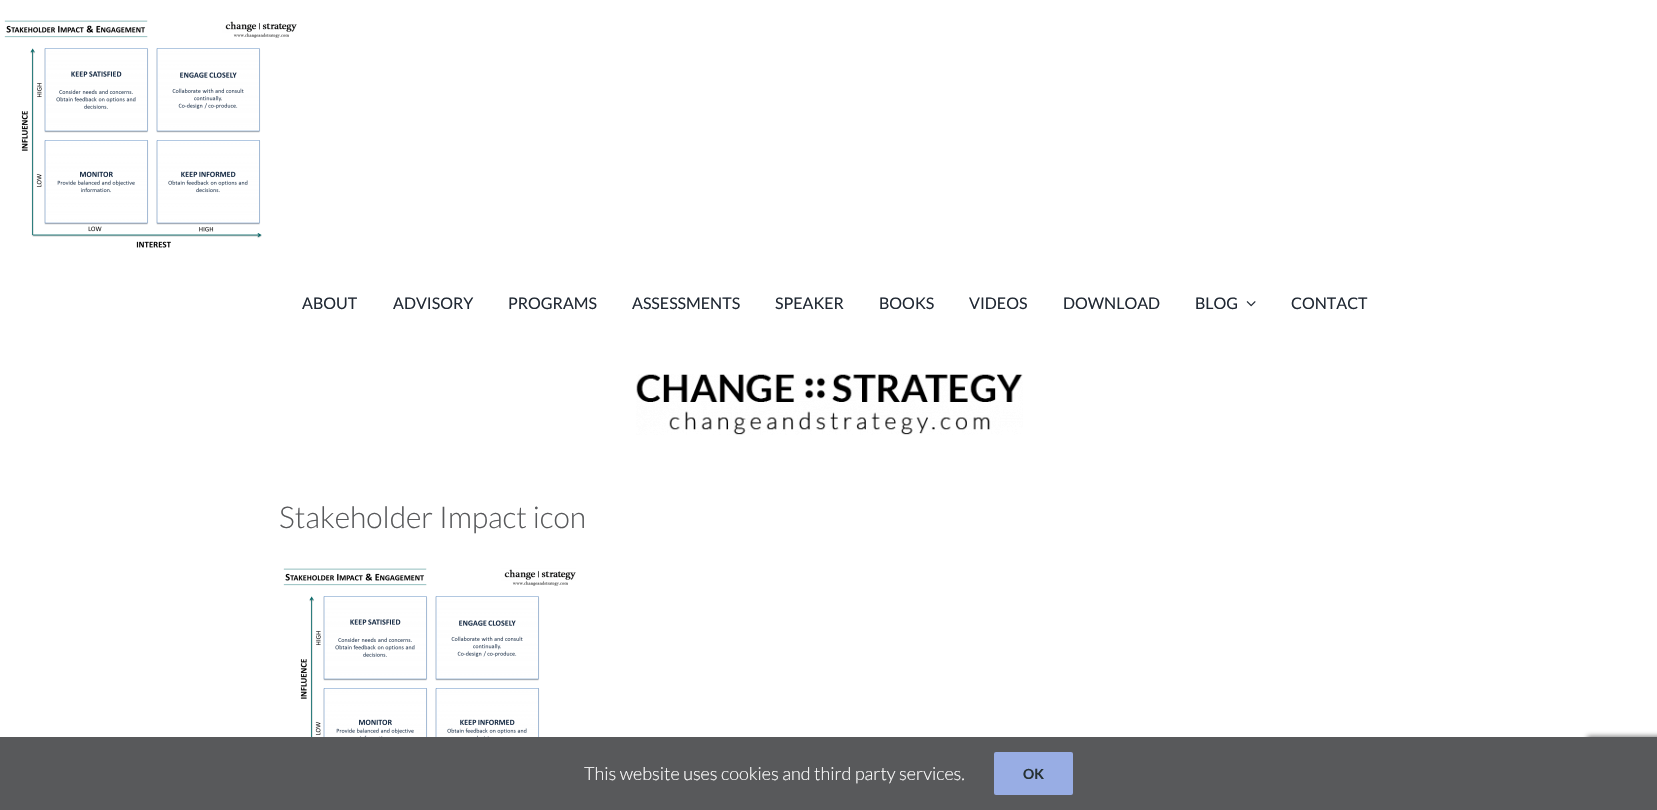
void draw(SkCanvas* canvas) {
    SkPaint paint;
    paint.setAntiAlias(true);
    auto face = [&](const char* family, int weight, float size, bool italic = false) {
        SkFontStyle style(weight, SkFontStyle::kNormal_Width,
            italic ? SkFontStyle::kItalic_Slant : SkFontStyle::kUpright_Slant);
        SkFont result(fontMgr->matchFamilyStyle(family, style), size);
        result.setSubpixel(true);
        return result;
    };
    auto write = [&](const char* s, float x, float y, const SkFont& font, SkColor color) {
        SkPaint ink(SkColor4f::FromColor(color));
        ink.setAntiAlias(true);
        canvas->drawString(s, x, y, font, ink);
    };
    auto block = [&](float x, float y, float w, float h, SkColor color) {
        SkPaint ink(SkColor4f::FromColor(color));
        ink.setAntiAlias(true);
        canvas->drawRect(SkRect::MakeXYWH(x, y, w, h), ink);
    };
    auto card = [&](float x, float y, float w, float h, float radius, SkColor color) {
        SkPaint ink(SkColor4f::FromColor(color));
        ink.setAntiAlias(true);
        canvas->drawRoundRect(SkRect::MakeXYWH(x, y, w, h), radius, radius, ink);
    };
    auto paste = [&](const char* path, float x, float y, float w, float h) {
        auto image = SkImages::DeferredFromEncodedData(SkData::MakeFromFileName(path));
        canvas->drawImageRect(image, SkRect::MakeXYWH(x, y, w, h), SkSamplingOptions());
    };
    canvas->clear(SK_ColorWHITE);
    paste("pic1.png", 4, 20, 293, 228);
    auto kFont1 = face("Lato", 400, 16);
    write("ABOUT", 302, 309, kFont1, SkColorSetRGB(33, 41, 52));
    write("ADVISORY", 393, 309, kFont1, SkColorSetRGB(33, 41, 52));
    write("PROGRAMS", 508, 309, kFont1, SkColorSetRGB(33, 41, 52));
    write("ASSESSMENTS", 632, 309, kFont1, SkColorSetRGB(33, 41, 52));
    write("SPEAKER", 775, 309, kFont1, SkColorSetRGB(33, 41, 52));
    write("BOOKS", 879, 309, kFont1, SkColorSetRGB(33, 41, 52));
    write("VIDEOS", 969, 309, kFont1, SkColorSetRGB(33, 41, 52));
    write("DOWNLOAD", 1063, 309, kFont1, SkColorSetRGB(33, 41, 52));
    write("BLOG", 1195, 309, kFont1, SkColorSetRGB(33, 41, 52));
    paste("pic2.png", 1246, 301, 10, 6);
    write("CONTACT", 1291, 309, kFont1, SkColorSetRGB(33, 41, 52));
    paste("pic3.png", 636, 374, 387, 61);
    auto kFont2 = face("Lato", 300, 30);
    write("Stakeholder Impact icon", 279, 528, kFont2, SkColorSetRGB(88, 89, 91));
    paste("pic4.png", 283, 568, 293, 169);
    paint.setColor(SkColorSetRGB(128, 128, 128));
    paint.setMaskFilter(SkMaskFilter::MakeBlur(kNormal_SkBlurStyle, 2.5f));
    canvas->drawRoundRect(SkRect::MakeXYWH(1587, 736, 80, 60), 2, 2, paint);
    paint.setMaskFilter(nullptr);
    block(0, 737, 1657, 73, SkColorSetRGB(88, 89, 91));
    auto kFont3 = face("Lato", 300, 18);
    write("This website uses cookies and third party services.", 584, 780, kFont3, SK_ColorWHITE);
    card(994, 752, 79, 43, 2, SkColorSetRGB(152, 173, 228));
    auto kFont4 = face("Lato", 700, 14);
    write("OK", 1023, 779, kFont4, SkColorSetRGB(38, 49, 51));
}
